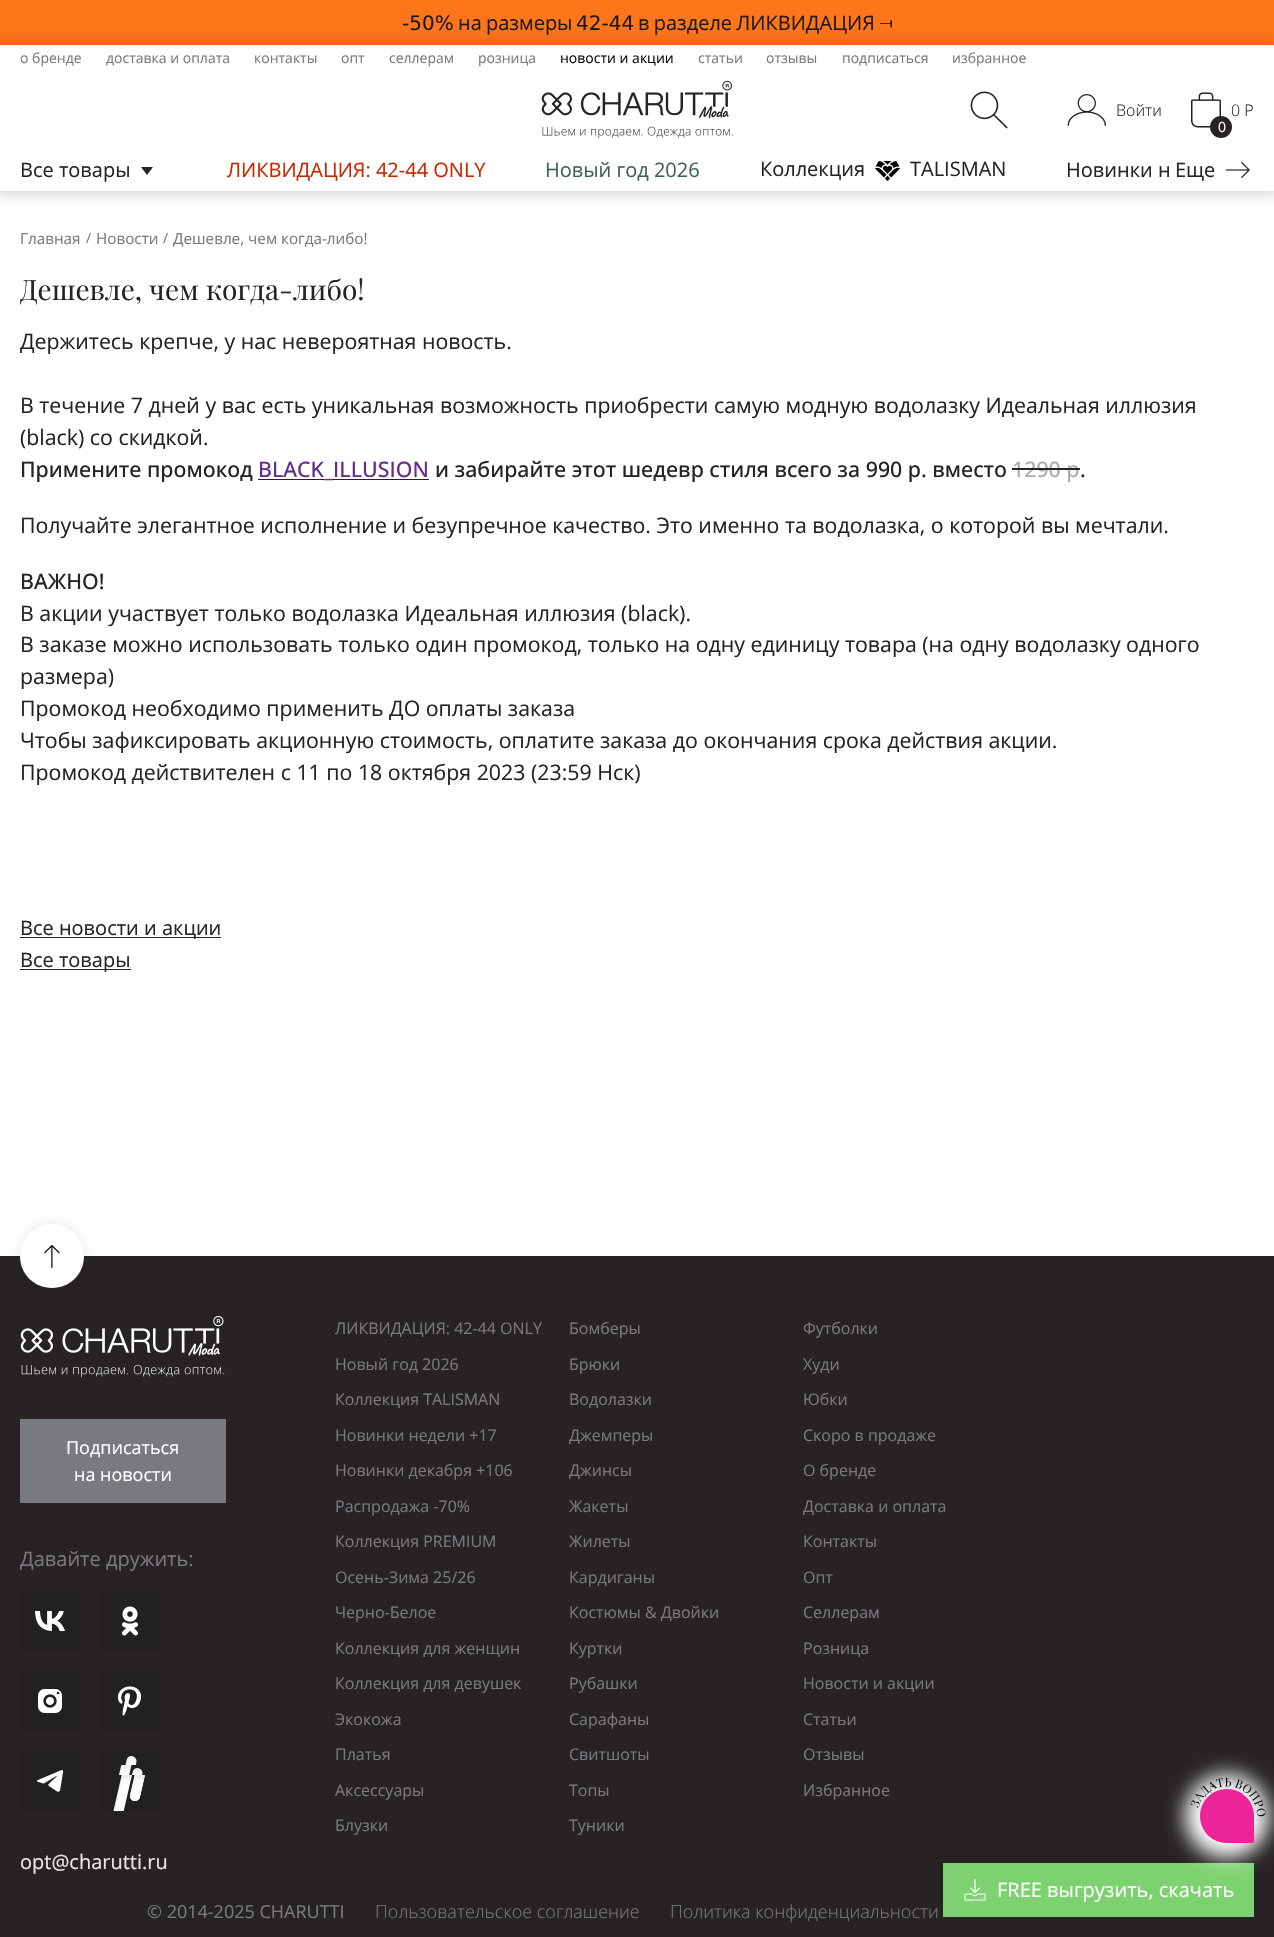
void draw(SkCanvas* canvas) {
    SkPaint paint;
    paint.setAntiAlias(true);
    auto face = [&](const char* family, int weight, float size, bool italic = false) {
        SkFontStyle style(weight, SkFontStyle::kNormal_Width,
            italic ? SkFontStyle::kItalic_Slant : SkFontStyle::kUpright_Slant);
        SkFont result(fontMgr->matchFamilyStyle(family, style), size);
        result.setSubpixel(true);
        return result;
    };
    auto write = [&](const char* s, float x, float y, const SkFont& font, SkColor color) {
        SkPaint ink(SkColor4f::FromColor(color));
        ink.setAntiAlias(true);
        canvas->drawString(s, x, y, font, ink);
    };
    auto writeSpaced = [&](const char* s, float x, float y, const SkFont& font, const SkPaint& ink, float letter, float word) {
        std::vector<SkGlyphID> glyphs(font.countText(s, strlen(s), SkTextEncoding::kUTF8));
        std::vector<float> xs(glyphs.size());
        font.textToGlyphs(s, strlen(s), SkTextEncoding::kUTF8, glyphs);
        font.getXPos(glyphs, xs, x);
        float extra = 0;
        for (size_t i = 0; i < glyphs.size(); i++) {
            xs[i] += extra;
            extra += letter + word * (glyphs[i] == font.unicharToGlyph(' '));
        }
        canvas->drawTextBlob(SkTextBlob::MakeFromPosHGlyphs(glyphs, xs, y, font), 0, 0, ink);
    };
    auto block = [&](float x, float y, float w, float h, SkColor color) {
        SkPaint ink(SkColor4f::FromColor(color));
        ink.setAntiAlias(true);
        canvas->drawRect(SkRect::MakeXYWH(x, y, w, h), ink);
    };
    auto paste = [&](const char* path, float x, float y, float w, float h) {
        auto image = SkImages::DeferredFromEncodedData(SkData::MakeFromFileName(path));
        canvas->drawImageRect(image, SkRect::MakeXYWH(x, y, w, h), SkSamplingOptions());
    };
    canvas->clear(SK_ColorWHITE);
    block(0, 0, 1274, 45, SkColorSetRGB(255, 117, 26));
    auto kFont1 = face("DejaVu Sans", 400, 20);
    write("-50%", 402, 30, kFont1, SkColorSetRGB(26, 26, 26));
    auto kFont2 = face("Open Sans", 400, 20);
    paint.setColor(SkColorSetRGB(26, 26, 26));
    writeSpaced("на размеры", 458, 30, kFont2, paint, 0, -1);
    write("42-44", 576, 30, kFont1, SkColorSetRGB(26, 26, 26));
    writeSpaced("в разделе ЛИКВИДАЦИЯ", 638, 30, kFont2, paint, 0, -1);
    canvas->save();
    canvas->clipRect(SkRect::MakeXYWH(382, 7, 510, 32));
    write("➝", 879, 30, kFont1, SkColorSetRGB(26, 26, 26));
    canvas->restore();
    canvas->save();
    canvas->clipPath(SkPathBuilder(SkPathFillType::kEvenOdd).moveTo(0, 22).lineTo(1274, 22).lineTo(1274, 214).lineTo(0, 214).close().moveTo(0, 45).lineTo(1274, 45).lineTo(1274, 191).lineTo(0, 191).close().detach(), true);
    paint.setColor(SkColorSetARGB(38, 0, 0, 0));
    paint.setMaskFilter(SkMaskFilter::MakeBlur(kNormal_SkBlurStyle, 6));
    canvas->drawRect(SkRect::MakeXYWH(-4, 41, 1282, 154), paint);
    paint.setMaskFilter(nullptr);
    canvas->restore();
    auto kFont3 = face("Open Sans", 400, 14);
    write("о бренде", 20, 63, kFont3, SkColorSetRGB(121, 122, 128));
    write("доставка и оплата", 106, 63, kFont3, SkColorSetRGB(121, 122, 128));
    write("контакты", 254, 63, kFont3, SkColorSetRGB(121, 122, 128));
    write("опт", 341, 63, kFont3, SkColorSetRGB(121, 122, 128));
    write("селлерам", 389, 63, kFont3, SkColorSetRGB(121, 122, 128));
    write("розница", 478, 63, kFont3, SkColorSetRGB(121, 122, 128));
    write("новости и акции", 560, 63, kFont3, SkColorSetRGB(17, 16, 16));
    write("статьи", 698, 63, kFont3, SkColorSetRGB(121, 122, 128));
    write("отзывы", 766, 63, kFont3, SkColorSetRGB(121, 122, 128));
    write("подписаться", 842, 63, kFont3, SkColorSetRGB(121, 122, 128));
    write("избранное", 952, 63, kFont3, SkColorSetRGB(121, 122, 128));
    paste("pic1.png", 541, 80, 192, 59);
    paste("pic2.png", 970, 91, 38, 38);
    paste("pic3.png", 1067, 94, 39, 32);
    auto kFont4 = face("Open Sans", 300, 16);
    write("Войти", 1116, 116, kFont4, SkColorSetRGB(39, 35, 36));
    write("0 Р", 1231, 116, kFont4, SkColorSetRGB(39, 35, 36));
    paste("pic4.png", 1191, 92, 30, 36);
    paint.setColor(SkColorSetRGB(39, 35, 36));
    canvas->drawCircle(1221, 127, 11, paint);
    write("0", 1218, 132, kFont3, SK_ColorWHITE);
    write("Все товары", 20, 177, kFont2, SkColorSetRGB(39, 35, 36));
    canvas->drawPath(SkPathBuilder().moveTo(141, 167).lineTo(153, 167).lineTo(147, 175).close().detach(), paint);
    write("ЛИКВИДАЦИЯ: 42-44 ONLY", 227, 177, kFont2, SkColorSetRGB(201, 39, 1));
    write("Новый год 2026", 545, 177, kFont2, SkColorSetRGB(65, 97, 79));
    write("Коллекция", 760, 176, kFont2, SkColorSetRGB(39, 35, 36));
    paste("pic5.png", 875, 161, 25, 20);
    write("TALISMAN", 910, 176, kFont2, SkColorSetRGB(39, 35, 36));
    write("Новинки н", 1066, 177, kFont2, SkColorSetRGB(39, 35, 36));
    write("Еще", 1175, 177, kFont2, SkColorSetRGB(39, 35, 36));
    paste("pic6.png", 1225, 162, 25, 16);
    auto kFont5 = face("Open Sans", 400, 15.25f);
    write("Главная", 20, 244, kFont5, SkColorSetRGB(121, 122, 128));
    write("/", 86, 243, kFont3, SkColorSetRGB(121, 122, 128));
    write("Новости", 96, 244, kFont5, SkColorSetRGB(121, 122, 128));
    write("/", 163, 243, kFont3, SkColorSetRGB(121, 122, 128));
    write("Дешевле, чем когда-либо!", 173, 244, kFont5, SkColorSetRGB(121, 122, 128));
    auto kFont6 = face("Playfair Display", 400, 28);
    write("Дешевле, чем когда-либо!", 20, 300, kFont6, SkColorSetRGB(39, 35, 36));
    auto kFont7 = face("Open Sans", 400, 21.33f);
    write("Держитесь крепче, у нас невероятная новость.", 20, 349, kFont7, SkColorSetRGB(39, 35, 36));
    write("В течение 7 дней у вас есть уникальная возможность приобрести самую модную водолазку Идеальная иллюзия", 20, 413, kFont7, SkColorSetRGB(39, 35, 36));
    write("(black) со скидкой.", 20, 445, kFont7, SkColorSetRGB(39, 35, 36));
    auto kFont8 = face("Open Sans", 500, 21.33f);
    write("Примените промокод", 20, 477, kFont8, SkColorSetRGB(39, 35, 36));
    block(258, 479, 171, 1, SkColorSetRGB(39, 35, 36));
    write("BLACK_ILLUSION", 258, 477, kFont8, SkColorSetRGB(101, 44, 145));
    write("и забирайте этот шедевр стиля всего за 990 р. вместо", 435, 477, kFont8, SkColorSetRGB(39, 35, 36));
    write("1290 р", 1012, 477, kFont8, SkColorSetRGB(172, 172, 172));
    block(1012, 468, 68, 2, SkColorSetRGB(39, 35, 36));
    write(".", 1080, 477, kFont8, SkColorSetRGB(39, 35, 36));
    write("Получайте элегантное исполнение и безупречное качество. Это именно та водолазка, о которой вы мечтали.", 20, 533, kFont7, SkColorSetRGB(39, 35, 36));
    write("ВАЖНО!", 20, 589, kFont8, SkColorSetRGB(39, 35, 36));
    write("В акции участвует только водолазка Идеальная иллюзия (black).", 20, 621, kFont7, SkColorSetRGB(39, 35, 36));
    write("В заказе можно использовать только один промокод, только на одну единицу товара (на одну водолазку одного", 20, 652, kFont7, SkColorSetRGB(39, 35, 36));
    write("размера)", 20, 684, kFont7, SkColorSetRGB(39, 35, 36));
    write("Промокод необходимо применить ДО оплаты заказа", 20, 716, kFont7, SkColorSetRGB(39, 35, 36));
    write("Чтобы зафиксировать акционную стоимость, оплатите заказа до окончания срока действия акции.", 20, 748, kFont7, SkColorSetRGB(39, 35, 36));
    write("Промокод действителен с 11 по 18 октября 2023 (23:59 Нск)", 20, 780, kFont7, SkColorSetRGB(39, 35, 36));
    block(20, 937, 201, 1, SkColorSetRGB(39, 35, 36));
    write("Все новости и акции", 20, 935, kFont2, SkColorSetRGB(39, 35, 36));
    block(20, 969, 111, 1, SkColorSetRGB(39, 35, 36));
    write("Все товары", 20, 967, kFont2, SkColorSetRGB(39, 35, 36));
    block(0, 1256, 1274, 681, SkColorSetRGB(39, 35, 36));
    paint.setColor(SkColorSetARGB(26, 0, 0, 0));
    paint.setMaskFilter(SkMaskFilter::MakeBlur(kNormal_SkBlurStyle, 6));
    canvas->drawRoundRect(SkRect::MakeXYWH(20, 1224, 64, 64), 32, 32, paint);
    paint.setMaskFilter(nullptr);
    paint.setColor(SK_ColorWHITE);
    canvas->drawPath(SkPathBuilder().moveTo(84, 1256).cubicTo(84, 1274, 70, 1288, 52, 1288).cubicTo(34, 1288, 20, 1274, 20, 1256).cubicTo(20, 1239, 34, 1224, 52, 1224).cubicTo(70, 1224, 84, 1239, 84, 1256).close().detach(), paint);
    paste("pic7.png", 44, 1245, 16, 23);
    block(943, 1863, 311, 54, SkColorSetRGB(126, 209, 112));
    paint.setMaskFilter(SkMaskFilter::MakeBlur(kNormal_SkBlurStyle, 10));
    canvas->drawRoundRect(SkRect::MakeXYWH(1185, 1774, 84, 84), 42, 42, paint);
    paint.setMaskFilter(nullptr);
    paint.setColor(SkColorSetRGB(237, 36, 151));
    canvas->drawPath(SkPathBuilder().moveTo(1227, 1789).cubicTo(1242, 1789, 1254, 1801, 1254, 1816).lineTo(1254, 1841).cubicTo(1254, 1842, 1253, 1843, 1252, 1843).lineTo(1227, 1843).cubicTo(1212, 1843, 1200, 1831, 1200, 1816).cubicTo(1200, 1801, 1212, 1789, 1227, 1789).close().detach(), paint);
    paste("pic8.png", 1190, 1777, 76, 40);
    paste("pic9.png", 964, 1879, 22, 22);
    write("FREE выгрузить, скачать", 997, 1897, kFont2, SK_ColorWHITE);
    paste("pic10.png", 20, 1316, 205, 62);
    block(20, 1419, 206, 84, SkColorSetRGB(121, 122, 128));
    auto kFont9 = face("Open Sans", 400, 18);
    write("Подписаться", 66, 1454, kFont9, SK_ColorWHITE);
    write("на новости", 74, 1481, kFont9, SK_ColorWHITE);
    write("Давайте дружить:", 20, 1566, kFont2, SkColorSetRGB(121, 122, 128));
    block(20, 1591, 60, 60, SkColorSetRGB(35, 32, 32));
    paste("pic11.png", 35, 1611, 30, 20);
    block(100, 1591, 60, 60, SkColorSetRGB(35, 32, 32));
    paste("pic12.png", 122, 1606, 16, 30);
    block(20, 1671, 60, 60, SkColorSetRGB(35, 32, 32));
    paste("pic13.png", 38, 1689, 24, 24);
    block(100, 1671, 60, 60, SkColorSetRGB(35, 32, 32));
    paste("pic14.png", 117, 1686, 25, 30);
    block(20, 1751, 60, 60, SkColorSetRGB(35, 32, 32));
    paste("pic15.png", 37, 1770, 27, 22);
    block(100, 1751, 60, 60, SkColorSetRGB(35, 32, 32));
    paste("pic16.png", 113, 1756, 32, 55);
    write("opt@charutti.ru", 20, 1869, kFont2, SkColorSetRGB(235, 232, 232));
    auto kFont10 = face("Open Sans", 400, 16);
    write("ЛИКВИДАЦИЯ: 42-44 ONLY", 335, 1334, kFont10, SkColorSetRGB(121, 122, 128));
    write("Бомберы", 569, 1334, kFont10, SkColorSetRGB(121, 122, 128));
    write("Футболки", 803, 1334, kFont10, SkColorSetRGB(121, 122, 128));
    write("Новый год 2026", 335, 1370, kFont10, SkColorSetRGB(121, 122, 128));
    write("Брюки", 569, 1370, kFont10, SkColorSetRGB(121, 122, 128));
    write("Худи", 803, 1370, kFont10, SkColorSetRGB(121, 122, 128));
    write("Коллекция TALISMAN", 335, 1405, kFont10, SkColorSetRGB(121, 122, 128));
    write("Водолазки", 569, 1405, kFont10, SkColorSetRGB(121, 122, 128));
    write("Юбки", 803, 1405, kFont10, SkColorSetRGB(121, 122, 128));
    write("Новинки недели +17", 335, 1441, kFont10, SkColorSetRGB(121, 122, 128));
    write("Джемперы", 569, 1441, kFont10, SkColorSetRGB(121, 122, 128));
    write("Скоро в продаже", 803, 1441, kFont10, SkColorSetRGB(121, 122, 128));
    write("Новинки декабря +106", 335, 1476, kFont10, SkColorSetRGB(121, 122, 128));
    write("Джинсы", 569, 1476, kFont10, SkColorSetRGB(121, 122, 128));
    write("О бренде", 803, 1476, kFont10, SkColorSetRGB(121, 122, 128));
    write("Распродажа -70%", 335, 1512, kFont10, SkColorSetRGB(121, 122, 128));
    write("Жакеты", 569, 1512, kFont10, SkColorSetRGB(121, 122, 128));
    write("Доставка и оплата", 803, 1512, kFont10, SkColorSetRGB(121, 122, 128));
    write("Коллекция PREMIUM", 335, 1547, kFont10, SkColorSetRGB(121, 122, 128));
    write("Жилеты", 569, 1547, kFont10, SkColorSetRGB(121, 122, 128));
    write("Контакты", 803, 1547, kFont10, SkColorSetRGB(121, 122, 128));
    write("Осень-Зима 25/26", 335, 1583, kFont10, SkColorSetRGB(121, 122, 128));
    write("Кардиганы", 569, 1583, kFont10, SkColorSetRGB(121, 122, 128));
    write("Опт", 803, 1583, kFont10, SkColorSetRGB(121, 122, 128));
    write("Черно-Белое", 335, 1618, kFont10, SkColorSetRGB(121, 122, 128));
    write("Костюмы & Двойки", 569, 1618, kFont10, SkColorSetRGB(121, 122, 128));
    write("Селлерам", 803, 1618, kFont10, SkColorSetRGB(121, 122, 128));
    write("Коллекция для женщин", 335, 1654, kFont10, SkColorSetRGB(121, 122, 128));
    write("Куртки", 569, 1654, kFont10, SkColorSetRGB(121, 122, 128));
    write("Розница", 803, 1654, kFont10, SkColorSetRGB(121, 122, 128));
    write("Коллекция для девушек", 335, 1689, kFont10, SkColorSetRGB(121, 122, 128));
    write("Рубашки", 569, 1689, kFont10, SkColorSetRGB(121, 122, 128));
    write("Новости и акции", 803, 1689, kFont10, SkColorSetRGB(121, 122, 128));
    write("Экокожа", 335, 1725, kFont10, SkColorSetRGB(121, 122, 128));
    write("Сарафаны", 569, 1725, kFont10, SkColorSetRGB(121, 122, 128));
    write("Статьи", 803, 1725, kFont10, SkColorSetRGB(121, 122, 128));
    write("Платья", 335, 1760, kFont10, SkColorSetRGB(121, 122, 128));
    write("Свитшоты", 569, 1760, kFont10, SkColorSetRGB(121, 122, 128));
    write("Отзывы", 803, 1760, kFont10, SkColorSetRGB(121, 122, 128));
    write("Аксессуары", 335, 1796, kFont10, SkColorSetRGB(121, 122, 128));
    write("Топы", 569, 1796, kFont10, SkColorSetRGB(121, 122, 128));
    write("Избранное", 803, 1796, kFont10, SkColorSetRGB(121, 122, 128));
    write("Блузки", 335, 1831, kFont10, SkColorSetRGB(121, 122, 128));
    write("Туники", 569, 1831, kFont10, SkColorSetRGB(121, 122, 128));
    write("© 2014-2025 CHARUTTI", 147, 1918, kFont9, SkColorSetRGB(121, 122, 128));
    auto kFont11 = face("Open Sans", 300, 18);
    write("Пользовательское соглашение", 375, 1918, kFont11, SkColorSetRGB(121, 122, 128));
    write("Политика конфиденциальности", 670, 1918, kFont11, SkColorSetRGB(121, 122, 128));
}
